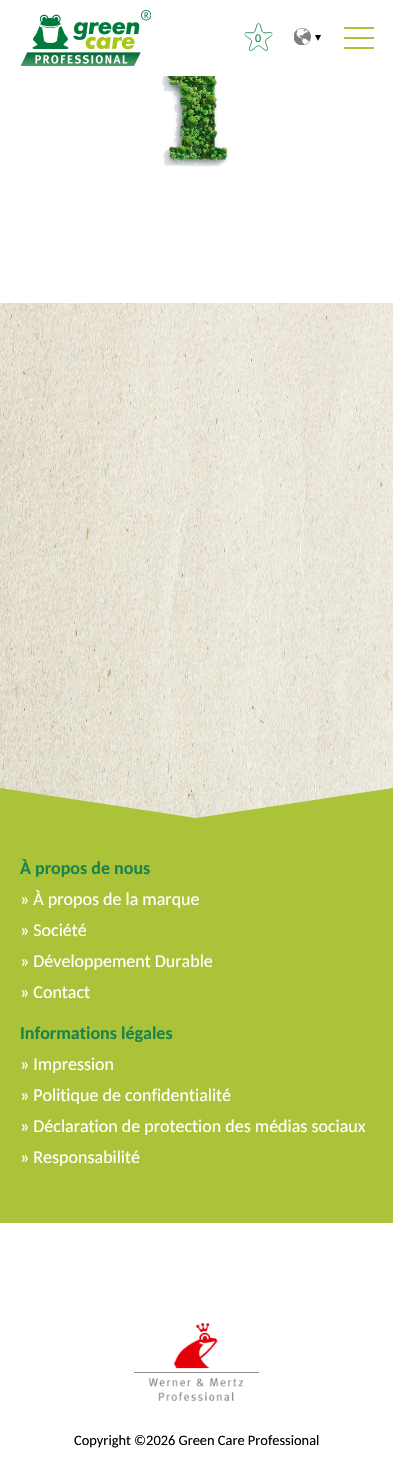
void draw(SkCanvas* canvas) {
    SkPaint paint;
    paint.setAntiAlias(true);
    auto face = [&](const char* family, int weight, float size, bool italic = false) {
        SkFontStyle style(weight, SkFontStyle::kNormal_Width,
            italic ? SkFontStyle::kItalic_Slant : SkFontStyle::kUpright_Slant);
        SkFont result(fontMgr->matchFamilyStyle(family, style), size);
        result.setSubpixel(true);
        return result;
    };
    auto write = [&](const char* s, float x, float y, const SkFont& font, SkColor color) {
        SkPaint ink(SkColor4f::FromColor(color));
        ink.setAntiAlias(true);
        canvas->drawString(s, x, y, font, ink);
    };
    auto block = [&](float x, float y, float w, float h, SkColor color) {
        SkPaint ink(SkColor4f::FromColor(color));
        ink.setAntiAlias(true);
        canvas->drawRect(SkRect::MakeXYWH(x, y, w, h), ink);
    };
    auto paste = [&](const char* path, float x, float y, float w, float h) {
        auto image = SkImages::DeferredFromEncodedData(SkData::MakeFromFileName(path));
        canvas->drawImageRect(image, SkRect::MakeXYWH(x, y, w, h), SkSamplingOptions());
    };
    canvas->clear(SK_ColorWHITE);
    paste("pic1.png", 20, 10, 131, 56);
    block(344, 27, 30, 2, SkColorSetRGB(171, 195, 56));
    block(344, 37, 30, 2, SkColorSetRGB(171, 195, 56));
    block(344, 47, 30, 2, SkColorSetRGB(171, 195, 56));
    paste("pic2.png", 244, 23, 29, 28);
    auto kFont1 = face("Carlito", 400, 12);
    write("0", 255, 42, kFont1, SkColorSetRGB(27, 131, 78));
    paste("pic3.png", 294, 28, 17, 17);
    auto kFont2 = face("DejaVu Sans", 400, 12);
    write("▾", 315, 41, kFont2, SK_ColorBLACK);
    paste("pic4.png", 161, 76, 69, 91);
    paste("pic5.png", 0, 303, 393, 515);
    block(0, 821, 393, 402, SkColorSetRGB(171, 195, 56));
    paint.setColor(SkColorSetRGB(171, 195, 56));
    canvas->drawPath(SkPathBuilder().moveTo(0, 788).lineTo(0, 821).lineTo(393, 821).lineTo(393, 788).lineTo(196, 818).close().detach(), paint);
    auto kFont3 = face("Carlito", 700, 18);
    write("À propos de nous", 20, 874, kFont3, SkColorSetRGB(27, 131, 78));
    auto kFont4 = face("Carlito", 400, 18);
    write("» À propos de la marque", 20, 905, kFont4, SK_ColorWHITE);
    write("» Société", 20, 936, kFont4, SK_ColorWHITE);
    write("» Développement Durable", 20, 967, kFont4, SK_ColorWHITE);
    write("» Contact", 20, 998, kFont4, SK_ColorWHITE);
    write("Informations légales", 20, 1039, kFont3, SkColorSetRGB(27, 131, 78));
    write("» Impression", 20, 1070, kFont4, SK_ColorWHITE);
    write("» Politique de confidentialité", 20, 1101, kFont4, SK_ColorWHITE);
    write("» Déclaration de protection des médias sociaux", 20, 1132, kFont4, SK_ColorWHITE);
    write("» Responsabilité", 20, 1163, kFont4, SK_ColorWHITE);
    paste("pic6.png", 134, 1323, 125, 78);
    auto kFont5 = face("Carlito", 400, 14.4f);
    write("Copyright ©2026 Green Care Professional", 74, 1445, kFont5, SK_ColorBLACK);
}
